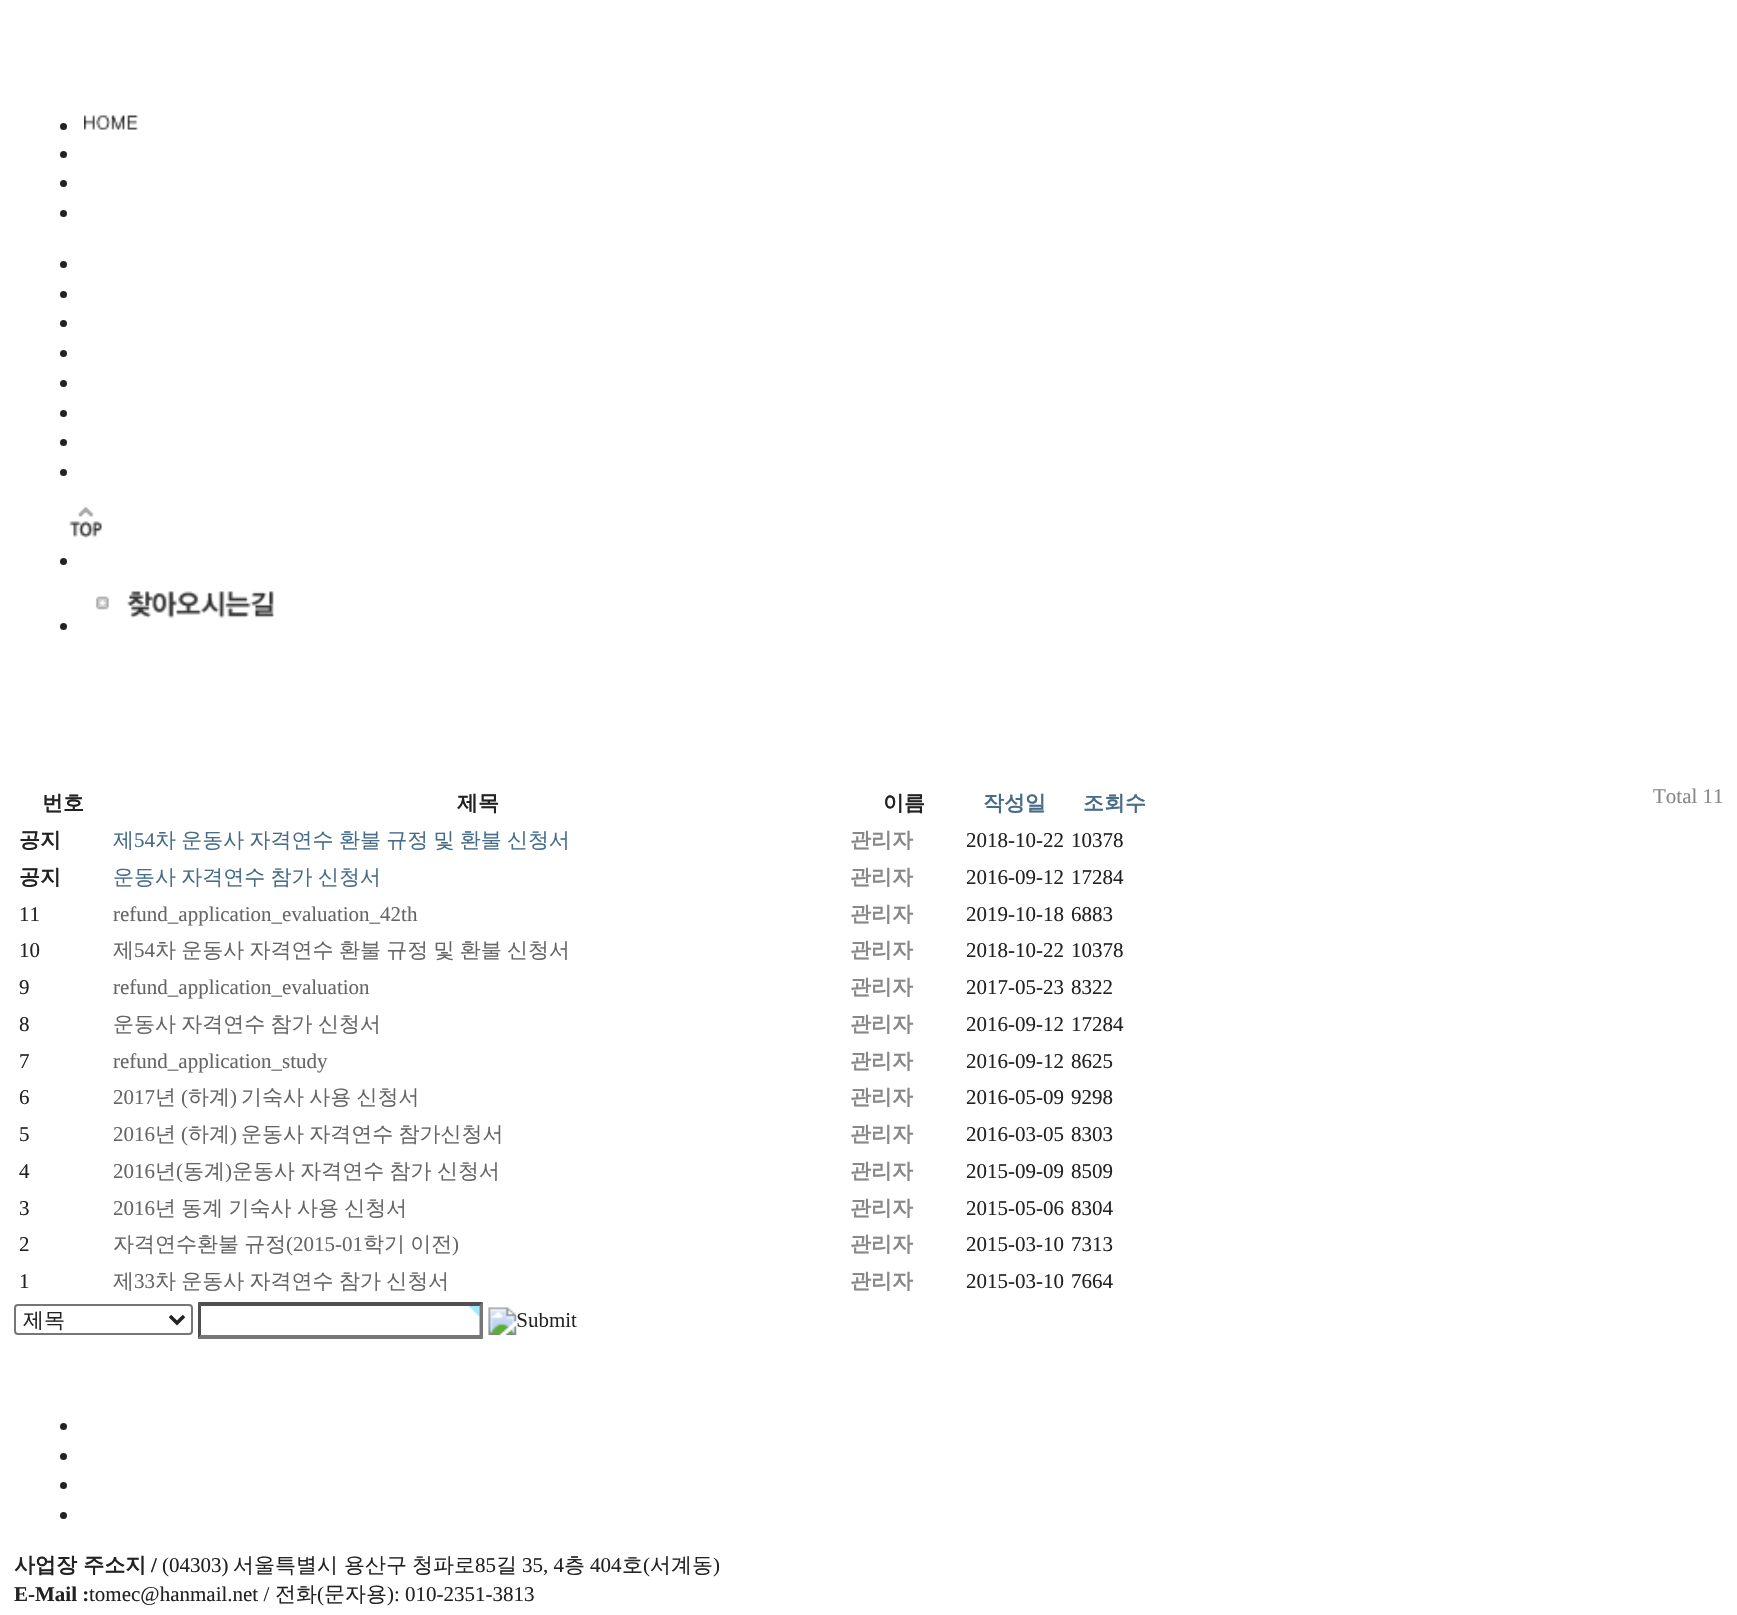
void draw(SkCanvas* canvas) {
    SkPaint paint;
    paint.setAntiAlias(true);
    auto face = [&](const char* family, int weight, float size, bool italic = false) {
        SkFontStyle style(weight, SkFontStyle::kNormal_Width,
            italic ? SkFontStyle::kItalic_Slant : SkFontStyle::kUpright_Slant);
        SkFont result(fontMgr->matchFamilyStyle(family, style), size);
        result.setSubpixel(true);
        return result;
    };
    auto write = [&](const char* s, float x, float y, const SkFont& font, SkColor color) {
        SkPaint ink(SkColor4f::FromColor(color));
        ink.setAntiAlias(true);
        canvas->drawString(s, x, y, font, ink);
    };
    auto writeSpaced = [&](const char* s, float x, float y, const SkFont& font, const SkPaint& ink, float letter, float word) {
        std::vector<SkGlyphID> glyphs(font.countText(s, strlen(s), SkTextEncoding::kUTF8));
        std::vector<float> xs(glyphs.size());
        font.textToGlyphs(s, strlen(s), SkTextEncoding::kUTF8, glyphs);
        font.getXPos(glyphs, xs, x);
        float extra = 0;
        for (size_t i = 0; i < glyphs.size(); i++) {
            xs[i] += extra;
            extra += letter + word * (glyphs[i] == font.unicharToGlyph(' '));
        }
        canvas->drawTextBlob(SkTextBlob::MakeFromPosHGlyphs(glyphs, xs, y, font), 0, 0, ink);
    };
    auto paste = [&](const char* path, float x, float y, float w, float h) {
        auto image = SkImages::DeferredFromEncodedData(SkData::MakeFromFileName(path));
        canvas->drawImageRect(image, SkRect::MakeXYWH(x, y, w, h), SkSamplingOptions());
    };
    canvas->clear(SK_ColorWHITE);
    paint.setColor(SkColorSetRGB(34, 34, 34));
    canvas->drawCircle(63.5f, 126.5f, 3.5f, paint);
    paste("pic1.png", 84, 115, 55, 15);
    canvas->drawCircle(63.5f, 154.5f, 3.5f, paint);
    canvas->drawCircle(63.5f, 183.5f, 3.5f, paint);
    canvas->drawCircle(63.5f, 213.5f, 3.5f, paint);
    canvas->drawCircle(63.5f, 264.5f, 3.5f, paint);
    canvas->drawCircle(63.5f, 294.5f, 3.5f, paint);
    canvas->drawCircle(63.5f, 323.5f, 3.5f, paint);
    canvas->drawCircle(63.5f, 353.5f, 3.5f, paint);
    canvas->drawCircle(63.5f, 383.5f, 3.5f, paint);
    canvas->drawCircle(63.5f, 413.5f, 3.5f, paint);
    canvas->drawCircle(63.5f, 442.5f, 3.5f, paint);
    canvas->drawCircle(63.5f, 472.5f, 3.5f, paint);
    canvas->drawCircle(63.5f, 561.5f, 3.5f, paint);
    paste("pic2.png", 95, 591, 180, 28);
    canvas->drawCircle(63.5f, 626.5f, 3.5f, paint);
    paste("pic3.png", 60, 499, 42, 39);
    auto kFont1 = face("WenQuanYi Zen Hei", 700, 21);
    write("번호", 42, 810, kFont1, SkColorSetRGB(34, 34, 34));
    write("제목", 457, 810, kFont1, SkColorSetRGB(34, 34, 34));
    write("이름", 883, 810, kFont1, SkColorSetRGB(34, 34, 34));
    write("작성일", 983, 810, kFont1, SkColorSetRGB(70, 108, 138));
    write("조회수", 1083, 810, kFont1, SkColorSetRGB(70, 108, 138));
    write("공지", 19, 847, kFont1, SkColorSetRGB(34, 34, 34));
    auto kFont2 = face("WenQuanYi Zen Hei", 500, 21);
    write("제", 113, 847, kFont2, SkColorSetRGB(70, 108, 138));
    auto kFont3 = face("Liberation Serif", 400, 21);
    write("54", 134, 847, kFont3, SkColorSetRGB(70, 108, 138));
    paint.setColor(SkColorSetRGB(70, 108, 138));
    writeSpaced("차 운동사 자격연수 환불 규정 및 환불 신청서", 155, 847, kFont2, paint, 0, -1);
    write("관리자", 850, 847, kFont1, SkColorSetRGB(136, 136, 136));
    write("2018-10-22", 966, 847, kFont3, SkColorSetRGB(34, 34, 34));
    write("10378", 1071, 847, kFont3, SkColorSetRGB(34, 34, 34));
    write("공지", 19, 884, kFont1, SkColorSetRGB(34, 34, 34));
    writeSpaced("운동사 자격연수 참가 신청서", 113, 884, kFont2, paint, 0, -1);
    write("관리자", 850, 884, kFont1, SkColorSetRGB(136, 136, 136));
    write("2016-09-12", 966, 884, kFont3, SkColorSetRGB(34, 34, 34));
    write("17284", 1071, 884, kFont3, SkColorSetRGB(34, 34, 34));
    write("11", 19, 921, kFont3, SkColorSetRGB(34, 34, 34));
    write("refund_application_evaluation_42th", 113, 921, kFont3, SkColorSetRGB(102, 102, 102));
    write("관리자", 850, 921, kFont1, SkColorSetRGB(136, 136, 136));
    write("2019-10-18", 966, 921, kFont3, SkColorSetRGB(34, 34, 34));
    write("6883", 1071, 921, kFont3, SkColorSetRGB(34, 34, 34));
    write("10", 19, 957, kFont3, SkColorSetRGB(34, 34, 34));
    write("제", 113, 957, kFont2, SkColorSetRGB(102, 102, 102));
    write("54", 134, 957, kFont3, SkColorSetRGB(102, 102, 102));
    paint.setColor(SkColorSetRGB(102, 102, 102));
    writeSpaced("차 운동사 자격연수 환불 규정 및 환불 신청서", 155, 957, kFont2, paint, 0, -1);
    write("관리자", 850, 957, kFont1, SkColorSetRGB(136, 136, 136));
    write("2018-10-22", 966, 957, kFont3, SkColorSetRGB(34, 34, 34));
    write("10378", 1071, 957, kFont3, SkColorSetRGB(34, 34, 34));
    write("9", 19, 994, kFont3, SkColorSetRGB(34, 34, 34));
    write("refund_application_evaluation", 113, 994, kFont3, SkColorSetRGB(102, 102, 102));
    write("관리자", 850, 994, kFont1, SkColorSetRGB(136, 136, 136));
    write("2017-05-23", 966, 994, kFont3, SkColorSetRGB(34, 34, 34));
    write("8322", 1071, 994, kFont3, SkColorSetRGB(34, 34, 34));
    write("8", 19, 1031, kFont3, SkColorSetRGB(34, 34, 34));
    writeSpaced("운동사 자격연수 참가 신청서", 113, 1031, kFont2, paint, 0, -1);
    write("관리자", 850, 1031, kFont1, SkColorSetRGB(136, 136, 136));
    write("2016-09-12", 966, 1031, kFont3, SkColorSetRGB(34, 34, 34));
    write("17284", 1071, 1031, kFont3, SkColorSetRGB(34, 34, 34));
    write("7", 19, 1068, kFont3, SkColorSetRGB(34, 34, 34));
    write("refund_application_study", 113, 1068, kFont3, SkColorSetRGB(102, 102, 102));
    write("관리자", 850, 1068, kFont1, SkColorSetRGB(136, 136, 136));
    write("2016-09-12", 966, 1068, kFont3, SkColorSetRGB(34, 34, 34));
    write("8625", 1071, 1068, kFont3, SkColorSetRGB(34, 34, 34));
    write("6", 19, 1104, kFont3, SkColorSetRGB(34, 34, 34));
    write("2017", 113, 1104, kFont3, SkColorSetRGB(102, 102, 102));
    write("년", 155, 1104, kFont2, SkColorSetRGB(102, 102, 102));
    write("(", 181, 1104, kFont3, SkColorSetRGB(102, 102, 102));
    write("하계", 188, 1104, kFont2, SkColorSetRGB(102, 102, 102));
    write(")", 230, 1104, kFont3, SkColorSetRGB(102, 102, 102));
    writeSpaced("기숙사 사용 신청서", 241, 1104, kFont2, paint, 0, -1);
    write("관리자", 850, 1104, kFont1, SkColorSetRGB(136, 136, 136));
    write("2016-05-09", 966, 1104, kFont3, SkColorSetRGB(34, 34, 34));
    write("9298", 1071, 1104, kFont3, SkColorSetRGB(34, 34, 34));
    write("5", 19, 1141, kFont3, SkColorSetRGB(34, 34, 34));
    write("2016", 113, 1141, kFont3, SkColorSetRGB(102, 102, 102));
    write("년", 155, 1141, kFont2, SkColorSetRGB(102, 102, 102));
    write("(", 181, 1141, kFont3, SkColorSetRGB(102, 102, 102));
    write("하계", 188, 1141, kFont2, SkColorSetRGB(102, 102, 102));
    write(")", 230, 1141, kFont3, SkColorSetRGB(102, 102, 102));
    writeSpaced("운동사 자격연수 참가신청서", 241, 1141, kFont2, paint, 0, -1);
    write("관리자", 850, 1141, kFont1, SkColorSetRGB(136, 136, 136));
    write("2016-03-05", 966, 1141, kFont3, SkColorSetRGB(34, 34, 34));
    write("8303", 1071, 1141, kFont3, SkColorSetRGB(34, 34, 34));
    write("4", 19, 1178, kFont3, SkColorSetRGB(34, 34, 34));
    write("2016", 113, 1178, kFont3, SkColorSetRGB(102, 102, 102));
    write("년", 155, 1178, kFont2, SkColorSetRGB(102, 102, 102));
    write("(", 176, 1178, kFont3, SkColorSetRGB(102, 102, 102));
    write("동계", 183, 1178, kFont2, SkColorSetRGB(102, 102, 102));
    write(")", 225, 1178, kFont3, SkColorSetRGB(102, 102, 102));
    writeSpaced("운동사 자격연수 참가 신청서", 232, 1178, kFont2, paint, 0, -1);
    write("관리자", 850, 1178, kFont1, SkColorSetRGB(136, 136, 136));
    write("2015-09-09", 966, 1178, kFont3, SkColorSetRGB(34, 34, 34));
    write("8509", 1071, 1178, kFont3, SkColorSetRGB(34, 34, 34));
    write("3", 19, 1215, kFont3, SkColorSetRGB(34, 34, 34));
    write("2016", 113, 1215, kFont3, SkColorSetRGB(102, 102, 102));
    writeSpaced("년 동계 기숙사 사용 신청서", 155, 1215, kFont2, paint, 0, -1);
    write("관리자", 850, 1215, kFont1, SkColorSetRGB(136, 136, 136));
    write("2015-05-06", 966, 1215, kFont3, SkColorSetRGB(34, 34, 34));
    write("8304", 1071, 1215, kFont3, SkColorSetRGB(34, 34, 34));
    write("2", 19, 1251, kFont3, SkColorSetRGB(34, 34, 34));
    writeSpaced("자격연수환불 규정", 113, 1251, kFont2, paint, 0, -1);
    write("(2015-01", 286, 1251, kFont3, SkColorSetRGB(102, 102, 102));
    writeSpaced("학기 이전", 363, 1251, kFont2, paint, 0, -1);
    write(")", 452, 1251, kFont3, SkColorSetRGB(102, 102, 102));
    write("관리자", 850, 1251, kFont1, SkColorSetRGB(136, 136, 136));
    write("2015-03-10", 966, 1251, kFont3, SkColorSetRGB(34, 34, 34));
    write("7313", 1071, 1251, kFont3, SkColorSetRGB(34, 34, 34));
    write("1", 19, 1288, kFont3, SkColorSetRGB(34, 34, 34));
    write("제", 113, 1288, kFont2, SkColorSetRGB(102, 102, 102));
    write("33", 134, 1288, kFont3, SkColorSetRGB(102, 102, 102));
    writeSpaced("차 운동사 자격연수 참가 신청서", 155, 1288, kFont2, paint, 0, -1);
    write("관리자", 850, 1288, kFont1, SkColorSetRGB(136, 136, 136));
    write("2015-03-10", 966, 1288, kFont3, SkColorSetRGB(34, 34, 34));
    write("7664", 1071, 1288, kFont3, SkColorSetRGB(34, 34, 34));
    write("Total 11", 1653, 803, kFont3, SkColorSetRGB(136, 136, 136));
    paint.setStyle(SkPaint::kStroke_Style);
    paint.setStrokeWidth(2);
    paint.setColor(SkColorSetRGB(118, 118, 118));
    canvas->drawRoundRect(SkRect::MakeXYWH(15, 1305, 177, 29), 3, 3, paint);
    paint.setStrokeWidth(3.5f);
    paint.setColor(SkColorSetRGB(34, 34, 34));
    canvas->drawPath(SkPathBuilder().moveTo(170, 1316).lineTo(177, 1323).lineTo(184, 1316).detach(), paint);
    write("제목", 23, 1327, kFont2, SkColorSetRGB(34, 34, 34));
    paste("pic4.png", 469, 1306, 11, 10);
    paint.setStyle(SkPaint::kFill_Style);
    paint.setColor(SkColorSetRGB(79, 79, 79));
    canvas->drawPath(SkPathBuilder().moveTo(198, 1302).lineTo(483, 1302).lineTo(480, 1306).lineTo(201, 1306).close().detach(), paint);
    paint.setColor(SkColorSetRGB(118, 118, 118));
    canvas->drawPath(SkPathBuilder().moveTo(483, 1302).lineTo(483, 1339).lineTo(479.5f, 1335).lineTo(479.5f, 1305.5f).close().detach(), paint);
    canvas->drawPath(SkPathBuilder().moveTo(483, 1339).lineTo(198, 1339).lineTo(201, 1335).lineTo(480, 1335).close().detach(), paint);
    paint.setColor(SkColorSetRGB(79, 79, 79));
    canvas->drawPath(SkPathBuilder().moveTo(198, 1339).lineTo(198, 1302).lineTo(201, 1305.5f).lineTo(201, 1335).close().detach(), paint);
    paste("pic5.png", 488, 1307, 89, 29);
    paint.setColor(SkColorSetRGB(34, 34, 34));
    canvas->drawCircle(63.5f, 1426.5f, 3.5f, paint);
    canvas->drawCircle(63.5f, 1456.5f, 3.5f, paint);
    canvas->drawCircle(63.5f, 1485.5f, 3.5f, paint);
    canvas->drawCircle(63.5f, 1515.5f, 3.5f, paint);
    write("사업장 주소지", 14, 1572, kFont1, SkColorSetRGB(34, 34, 34));
    auto kFont4 = face("Liberation Serif", 700, 21);
    write("/", 151, 1572, kFont4, SkColorSetRGB(34, 34, 34));
    write("(04303)", 162, 1572, kFont3, SkColorSetRGB(34, 34, 34));
    write("서울특별시", 233, 1572, kFont2, SkColorSetRGB(34, 34, 34));
    write("용산구", 344, 1572, kFont2, SkColorSetRGB(34, 34, 34));
    write("청파로", 412, 1572, kFont2, SkColorSetRGB(34, 34, 34));
    write("85", 475, 1572, kFont3, SkColorSetRGB(34, 34, 34));
    write("길", 496, 1572, kFont2, SkColorSetRGB(34, 34, 34));
    write("35, 4", 522, 1572, kFont3, SkColorSetRGB(34, 34, 34));
    write("층", 564, 1572, kFont2, SkColorSetRGB(34, 34, 34));
    write("404", 590, 1572, kFont3, SkColorSetRGB(34, 34, 34));
    write("호", 622, 1572, kFont2, SkColorSetRGB(34, 34, 34));
    write("(", 643, 1572, kFont3, SkColorSetRGB(34, 34, 34));
    write("서계동", 650, 1572, kFont2, SkColorSetRGB(34, 34, 34));
    write(")", 713, 1572, kFont3, SkColorSetRGB(34, 34, 34));
    write("E-Mail :", 14, 1601, kFont4, SkColorSetRGB(34, 34, 34));
    write("tomec@hanmail.net /", 89, 1601, kFont3, SkColorSetRGB(34, 34, 34));
    write("전화", 275, 1601, kFont2, SkColorSetRGB(34, 34, 34));
    write("(", 317, 1601, kFont3, SkColorSetRGB(34, 34, 34));
    write("문자용", 324, 1601, kFont2, SkColorSetRGB(34, 34, 34));
    write("): 010-2351-3813", 387, 1601, kFont3, SkColorSetRGB(34, 34, 34));
}
